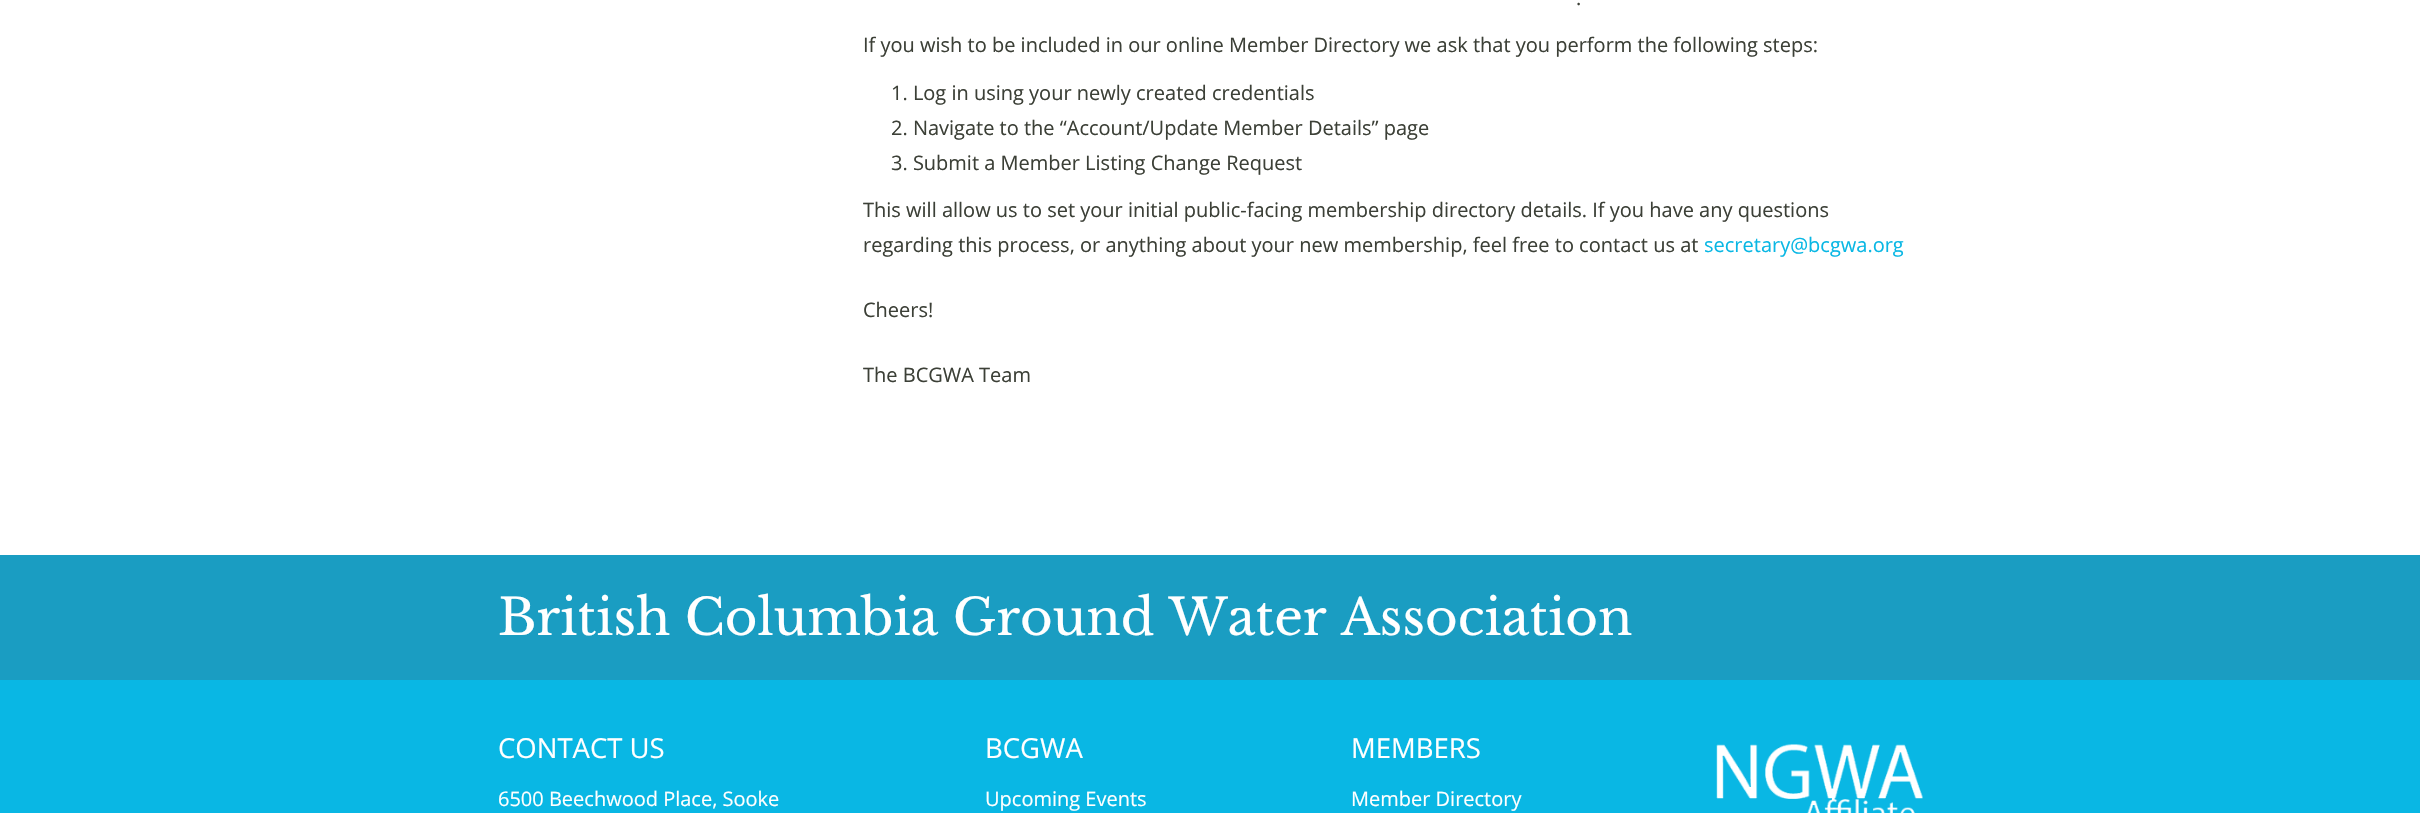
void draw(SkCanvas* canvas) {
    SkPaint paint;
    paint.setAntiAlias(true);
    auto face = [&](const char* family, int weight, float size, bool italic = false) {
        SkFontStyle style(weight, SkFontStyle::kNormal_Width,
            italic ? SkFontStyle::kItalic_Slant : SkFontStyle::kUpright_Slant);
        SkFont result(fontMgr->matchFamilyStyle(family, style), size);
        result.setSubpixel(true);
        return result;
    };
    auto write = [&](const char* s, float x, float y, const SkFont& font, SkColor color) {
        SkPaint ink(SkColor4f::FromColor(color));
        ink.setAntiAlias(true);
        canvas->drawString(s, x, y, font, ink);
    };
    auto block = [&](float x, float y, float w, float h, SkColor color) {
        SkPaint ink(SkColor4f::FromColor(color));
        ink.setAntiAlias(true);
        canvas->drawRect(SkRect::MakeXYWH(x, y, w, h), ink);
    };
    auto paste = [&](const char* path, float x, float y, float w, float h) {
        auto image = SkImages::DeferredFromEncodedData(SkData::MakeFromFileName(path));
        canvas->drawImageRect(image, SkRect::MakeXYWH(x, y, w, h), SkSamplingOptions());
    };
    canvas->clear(SK_ColorWHITE);
    auto kFont1 = face("Open Sans", 400, 20);
    write(".", 1576, 5, kFont1, SkColorSetRGB(60, 64, 55));
    write("If you wish to be included in our online Member Directory we ask that you perform the following steps:", 863, 52, kFont1, SkColorSetRGB(60, 64, 55));
    write("1. Log in using your newly created credentials", 891, 100, kFont1, SkColorSetRGB(60, 64, 55));
    write("2. Navigate to the “Account/Update Member Details” page", 891, 135, kFont1, SkColorSetRGB(60, 64, 55));
    write("3. Submit a Member Listing Change Request", 891, 170, kFont1, SkColorSetRGB(60, 64, 55));
    write("This will allow us to set your initial public-facing membership directory details. If you have any questions", 863, 217, kFont1, SkColorSetRGB(60, 64, 55));
    write("regarding this process, or anything about your new membership, feel free to contact us at", 863, 252, kFont1, SkColorSetRGB(60, 64, 55));
    write("secretary@bcgwa.org", 1704, 252, kFont1, SkColorSetRGB(9, 183, 228));
    write("Cheers!", 863, 317, kFont1, SkColorSetRGB(60, 64, 55));
    write("The BCGWA Team", 863, 382, kFont1, SkColorSetRGB(60, 64, 55));
    block(0, 555, 2420, 125, SkColorSetRGB(26, 157, 194));
    auto kFont2 = face("Libre Baskerville", 400, 50);
    write("British Columbia Ground Water Association", 498, 635, kFont2, SK_ColorWHITE);
    block(0, 680, 2420, 133, SkColorSetRGB(9, 183, 228));
    auto kFont3 = face("Open Sans", 400, 27.5f);
    write("CONTACT US", 498, 758, kFont3, SK_ColorWHITE);
    write("6500 Beechwood Place, Sooke", 498, 806, kFont1, SK_ColorWHITE);
    write("BCGWA", 985, 758, kFont3, SK_ColorWHITE);
    write("Upcoming Events", 985, 806, kFont1, SK_ColorWHITE);
    write("MEMBERS", 1351, 758, kFont3, SK_ColorWHITE);
    write("Member Directory", 1351, 806, kFont1, SK_ColorWHITE);
    paste("pic1.png", 1716, 744, 207, 69);
}
